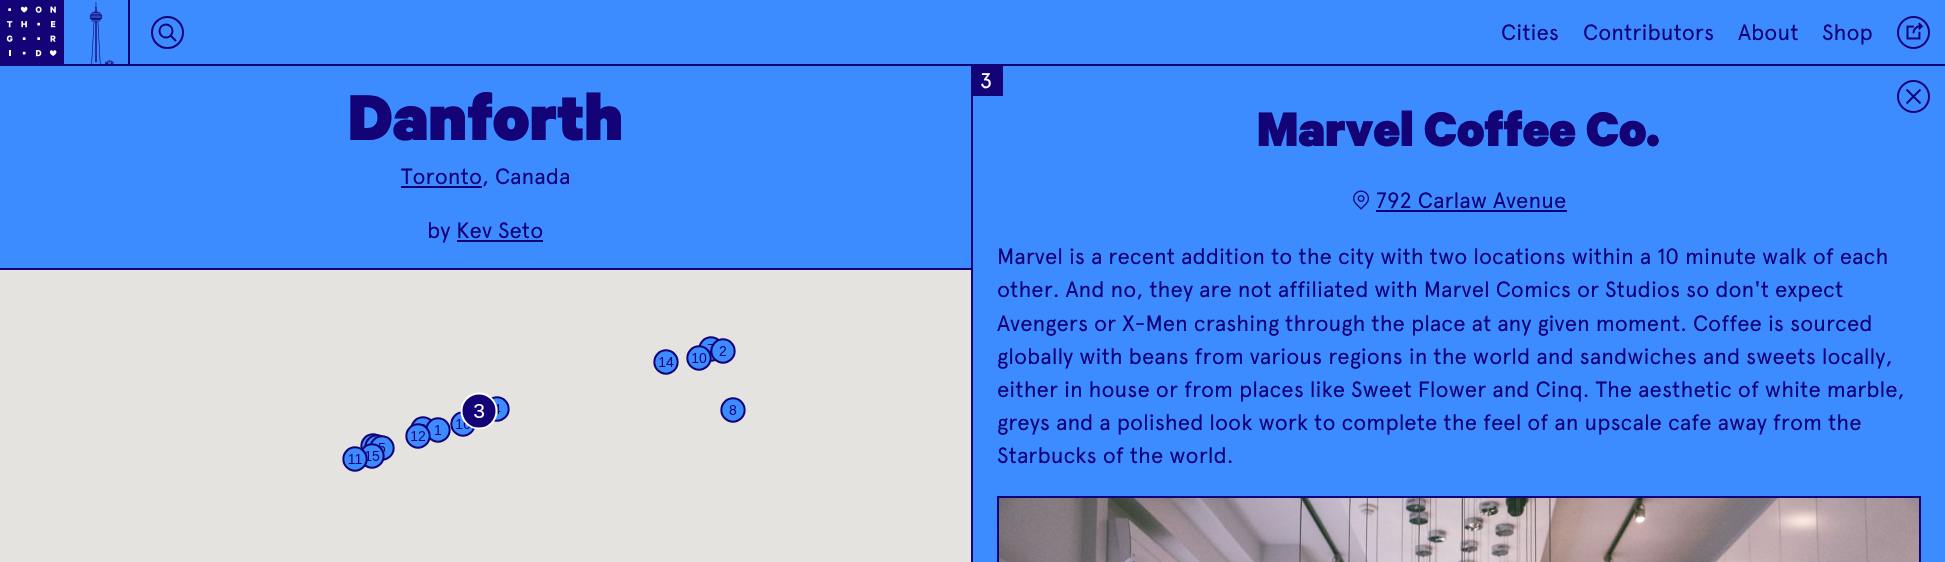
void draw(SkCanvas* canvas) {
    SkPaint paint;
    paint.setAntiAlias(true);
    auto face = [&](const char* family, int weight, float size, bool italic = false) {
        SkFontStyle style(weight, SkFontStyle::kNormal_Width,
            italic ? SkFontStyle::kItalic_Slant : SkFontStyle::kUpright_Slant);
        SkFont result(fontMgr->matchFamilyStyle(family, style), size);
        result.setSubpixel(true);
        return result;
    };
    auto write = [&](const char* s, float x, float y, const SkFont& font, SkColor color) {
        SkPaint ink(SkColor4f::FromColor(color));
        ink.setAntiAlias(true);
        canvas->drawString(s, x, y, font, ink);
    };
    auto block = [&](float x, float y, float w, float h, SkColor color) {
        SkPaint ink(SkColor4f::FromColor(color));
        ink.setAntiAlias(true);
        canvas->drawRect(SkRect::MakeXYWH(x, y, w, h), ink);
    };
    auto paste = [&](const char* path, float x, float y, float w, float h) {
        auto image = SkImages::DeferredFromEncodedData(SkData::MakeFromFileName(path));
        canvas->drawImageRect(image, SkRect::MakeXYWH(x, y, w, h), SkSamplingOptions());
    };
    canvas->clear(SkColorSetRGB(60, 139, 255));
    block(0, 64, 1945, 2, SkColorSetRGB(19, 3, 119));
    block(0, 0, 64, 64, SkColorSetRGB(19, 3, 119));
    paste("pic1.png", 6, 6, 51, 51);
    block(128, 0, 2, 64, SkColorSetRGB(19, 3, 119));
    paste("pic2.png", 89, 2, 25, 62);
    paint.setStyle(SkPaint::kStroke_Style);
    paint.setStrokeWidth(2);
    paint.setColor(SkColorSetRGB(19, 3, 119));
    canvas->drawCircle(167.5f, 32.5f, 15.5f, paint);
    canvas->drawCircle(166, 31, 6.5f, paint);
    canvas->drawPath(SkPathBuilder().moveTo(170.5f, 35.5f).lineTo(176, 41).detach(), paint);
    auto kFont1 = face("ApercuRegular", 400, 22.1f);
    write("Cities", 1501, 40, kFont1, SkColorSetRGB(19, 3, 119));
    write("Contributors", 1583, 40, kFont1, SkColorSetRGB(19, 3, 119));
    write("About", 1738, 40, kFont1, SkColorSetRGB(19, 3, 119));
    write("Shop", 1822, 40, kFont1, SkColorSetRGB(19, 3, 119));
    paste("pic3.png", 1897, 16, 33, 33);
    block(971, 66, 2, 496, SkColorSetRGB(19, 3, 119));
    block(0, 268, 971, 2, SkColorSetRGB(19, 3, 119));
    auto kFont2 = face("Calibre", 900, 73);
    write("Danforth", 348, 140, kFont2, SkColorSetRGB(19, 3, 119));
    block(401, 186, 81, 2, SkColorSetRGB(19, 3, 119));
    write("Toronto, Canada", 401, 184, kFont1, SkColorSetRGB(19, 3, 119));
    write("by Kev Seto", 427, 238, kFont1, SkColorSetRGB(19, 3, 119));
    block(457, 240, 86, 2, SkColorSetRGB(19, 3, 119));
    block(0, 270, 971, 292, SkColorSetRGB(229, 227, 223));
    paste("pic4.png", 698, 336, 21, 26);
    paste("pic5.png", 710, 338, 26, 26);
    paste("pic6.png", 653, 349, 26, 26);
    paste("pic7.png", 686, 345, 26, 26);
    paste("pic9.png", 491, 396, 19, 26);
    paste("pic13.png", 450, 411, 25, 26);
    paste("pic8.png", 460, 392, 38, 38);
    paste("pic10.png", 720, 397, 26, 26);
    paste("pic11.png", 410, 416, 22, 24);
    paste("pic12.png", 425, 417, 26, 26);
    paste("pic14.png", 360, 433, 20, 16);
    paste("pic15.png", 405, 423, 26, 26);
    paste("pic16.png", 364, 434, 20, 12);
    paste("pic17.png", 370, 435, 25, 26);
    paste("pic19.png", 361, 443, 24, 26);
    paste("pic18.png", 342, 446, 26, 26);
    block(973, 66, 30, 30, SkColorSetRGB(19, 3, 119));
    auto kFont3 = face("ApercuRegular", 400, 21);
    write("3", 980, 88, kFont3, SK_ColorWHITE);
    auto kFont4 = face("Calibre", 900, 54.5f);
    write("Marvel Coffee Co.", 1257, 146, kFont4, SkColorSetRGB(19, 3, 119));
    paste("pic20.png", 1353, 190, 16, 20);
    write("792 Carlaw Avenue", 1376, 208, kFont1, SkColorSetRGB(19, 3, 119));
    block(1376, 210, 191, 2, SkColorSetRGB(19, 3, 119));
    write("Marvel is a recent addition to the city with two locations within a 10 minute walk of each", 997, 264, kFont1, SkColorSetRGB(19, 3, 119));
    write("other. And no, they are not affiliated with Marvel Comics or Studios so don't expect", 997, 297, kFont1, SkColorSetRGB(19, 3, 119));
    write("Avengers or X-Men crashing through the place at any given moment. Coffee is sourced", 997, 331, kFont1, SkColorSetRGB(19, 3, 119));
    write("globally with beans from various regions in the world and sandwiches and sweets locally,", 997, 364, kFont1, SkColorSetRGB(19, 3, 119));
    write("either in house or from places like Sweet Flower and Cinq. The aesthetic of white marble,", 997, 397, kFont1, SkColorSetRGB(19, 3, 119));
    write("greys and a polished look work to complete the feel of an upscale cafe away from the", 997, 430, kFont1, SkColorSetRGB(19, 3, 119));
    write("Starbucks of the world.", 997, 463, kFont1, SkColorSetRGB(19, 3, 119));
    canvas->drawRect(SkRect::MakeXYWH(998, 497, 922, 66), paint);
    paste("pic21.png", 999, 498, 920, 64);
    paste("pic22.png", 1897, 80, 33, 33);
}
